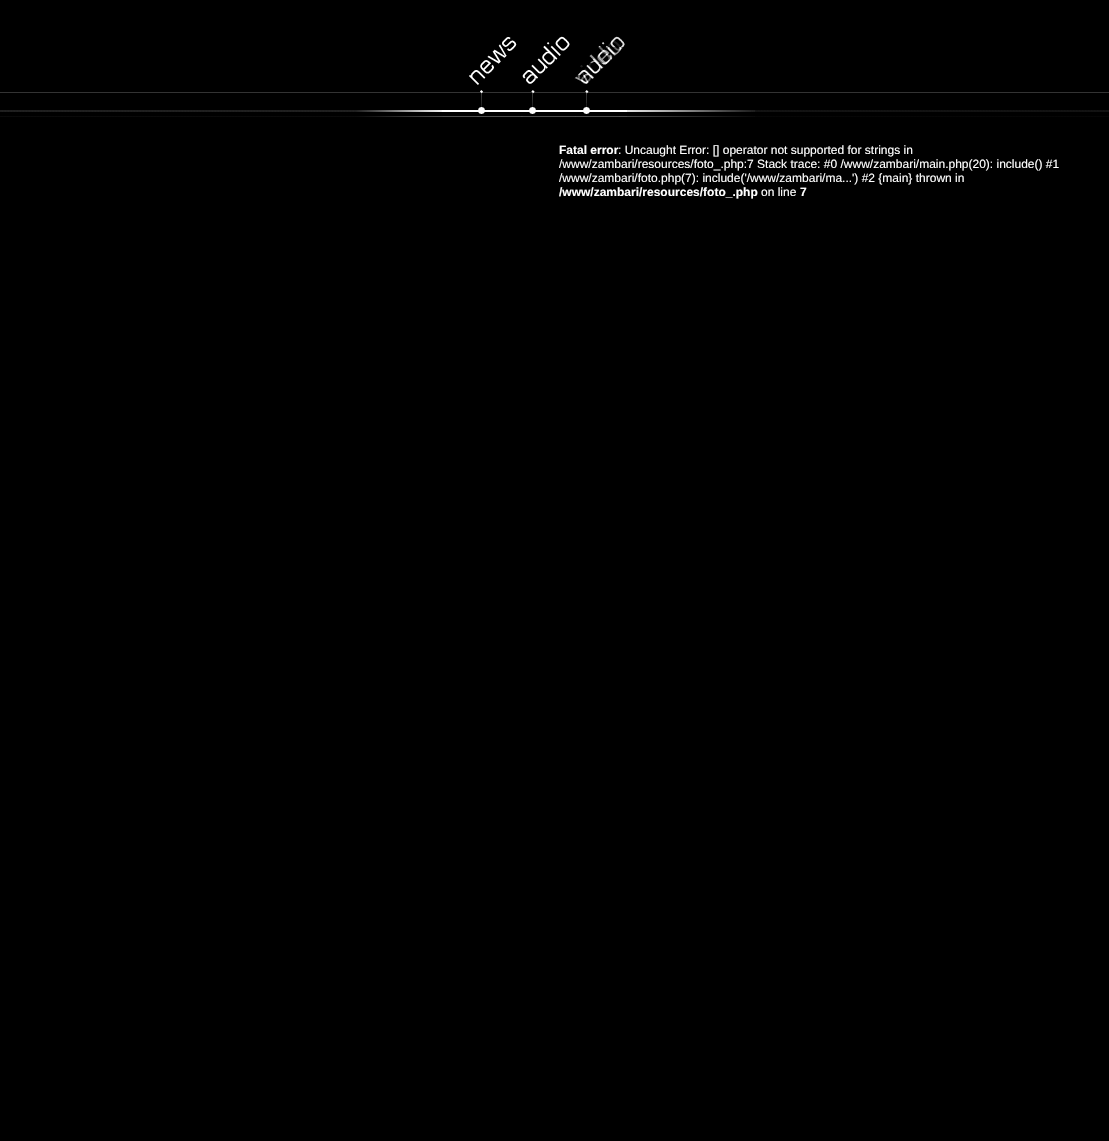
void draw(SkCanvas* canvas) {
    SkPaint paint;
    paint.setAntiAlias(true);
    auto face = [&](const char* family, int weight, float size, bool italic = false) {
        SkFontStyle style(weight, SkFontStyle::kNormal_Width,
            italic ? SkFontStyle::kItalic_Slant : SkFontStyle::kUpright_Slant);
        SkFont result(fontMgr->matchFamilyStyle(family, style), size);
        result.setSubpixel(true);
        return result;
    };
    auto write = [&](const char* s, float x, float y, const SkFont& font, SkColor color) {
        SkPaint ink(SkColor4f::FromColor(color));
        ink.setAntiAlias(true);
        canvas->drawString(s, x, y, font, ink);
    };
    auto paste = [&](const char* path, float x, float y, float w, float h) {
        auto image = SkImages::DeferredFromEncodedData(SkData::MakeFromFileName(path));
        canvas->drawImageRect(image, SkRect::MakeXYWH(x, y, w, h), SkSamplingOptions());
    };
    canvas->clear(SK_ColorBLACK);
    paste("pic1.png", 0, 92, 354, 25);
    paste("pic2.png", 354, 92, 401, 25);
    paste("pic3.png", 357, 110, 110, 7);
    paste("pic4.png", 467, 37, 52, 80);
    paste("pic5.png", 519, 36, 54, 81);
    paste("pic6.png", 573, 36, 54, 81);
    paste("pic7.png", 627, 110, 124, 7);
    paste("pic8.png", 755, 92, 354, 25);
    auto kFont1 = face("Liberation Sans", 700, 12);
    write("Fatal error", 559, 154, kFont1, SK_ColorWHITE);
    auto kFont2 = face("Liberation Sans", 400, 12);
    write(": Uncaught Error: [] operator not supported for strings in", 618, 154, kFont2, SK_ColorWHITE);
    write("/www/zambari/resources/foto_.php:7 Stack trace: #0 /www/zambari/main.php(20): include() #1", 559, 168, kFont2, SK_ColorWHITE);
    write("/www/zambari/foto.php(7): include('/www/zambari/ma...') #2 {main} thrown in", 559, 182, kFont2, SK_ColorWHITE);
    write("/www/zambari/resources/foto_.php", 559, 196, kFont1, SK_ColorWHITE);
    write("on line", 761, 196, kFont2, SK_ColorWHITE);
    write("7", 800, 196, kFont1, SK_ColorWHITE);
}
